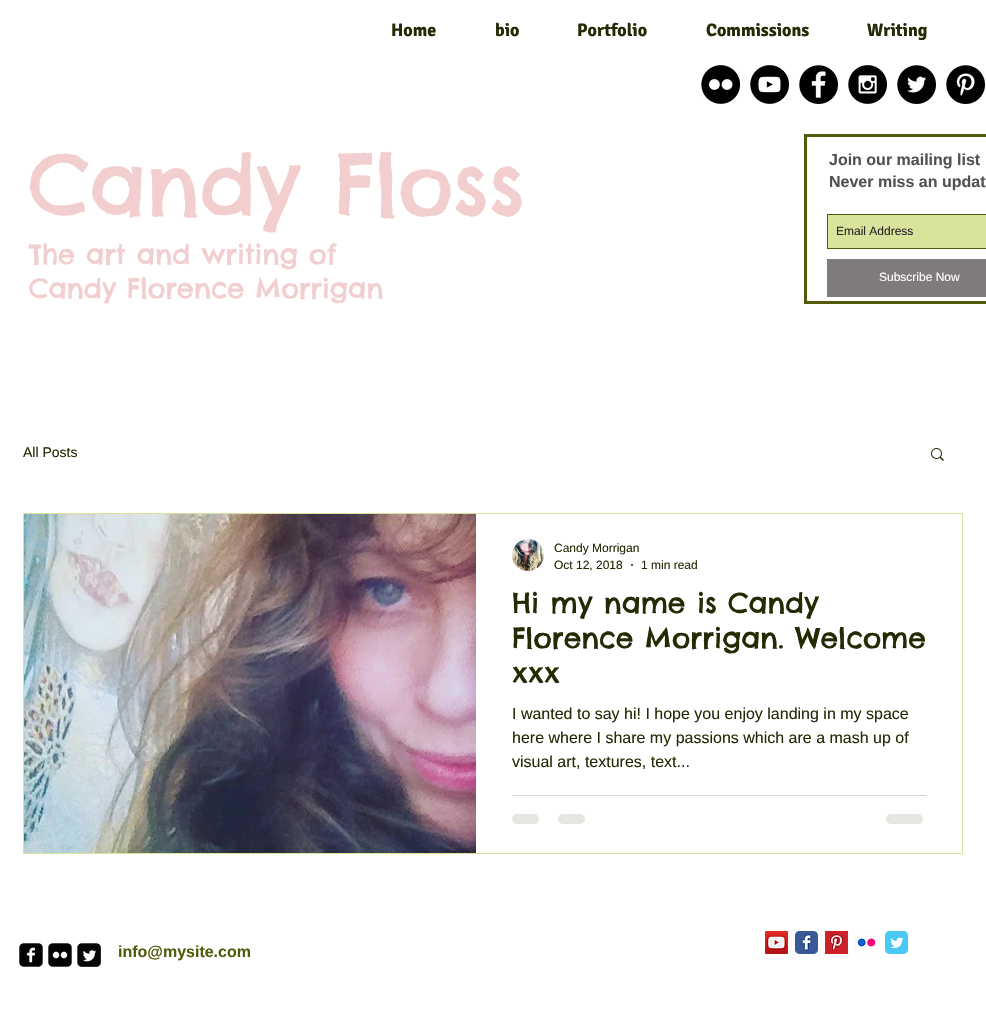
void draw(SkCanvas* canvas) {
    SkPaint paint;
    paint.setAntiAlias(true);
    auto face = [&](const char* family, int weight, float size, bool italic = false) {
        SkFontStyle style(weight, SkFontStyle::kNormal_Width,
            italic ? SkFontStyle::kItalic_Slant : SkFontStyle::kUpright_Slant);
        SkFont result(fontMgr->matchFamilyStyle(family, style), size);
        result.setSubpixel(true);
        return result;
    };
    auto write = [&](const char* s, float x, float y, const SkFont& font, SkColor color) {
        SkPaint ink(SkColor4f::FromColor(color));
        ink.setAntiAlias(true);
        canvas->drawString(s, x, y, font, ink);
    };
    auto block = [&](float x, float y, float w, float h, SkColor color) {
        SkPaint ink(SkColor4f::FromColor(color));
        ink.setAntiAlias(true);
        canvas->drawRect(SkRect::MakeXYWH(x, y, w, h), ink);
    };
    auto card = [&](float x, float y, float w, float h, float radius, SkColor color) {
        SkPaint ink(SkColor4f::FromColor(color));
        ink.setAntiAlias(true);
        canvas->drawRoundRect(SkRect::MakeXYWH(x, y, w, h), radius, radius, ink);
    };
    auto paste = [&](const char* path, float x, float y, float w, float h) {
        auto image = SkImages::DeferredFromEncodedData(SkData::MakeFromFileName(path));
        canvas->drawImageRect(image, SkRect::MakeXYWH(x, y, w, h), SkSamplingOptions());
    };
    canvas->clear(SK_ColorWHITE);
    auto kFont1 = face("Signika", 700, 18);
    write("Home", 391, 36, kFont1, SkColorSetRGB(37, 42, 4));
    write("bio", 495, 36, kFont1, SkColorSetRGB(37, 42, 4));
    write("Portfolio", 577, 36, kFont1, SkColorSetRGB(37, 42, 4));
    write("Commissions", 706, 36, kFont1, SkColorSetRGB(37, 42, 4));
    write("Writing", 867, 36, kFont1, SkColorSetRGB(37, 42, 4));
    paste("pic1.png", 701, 65, 39, 39);
    paste("pic2.png", 750, 65, 39, 39);
    paste("pic3.png", 799, 65, 39, 39);
    paste("pic4.png", 848, 65, 39, 39);
    paste("pic5.png", 897, 65, 39, 39);
    paste("pic6.png", 946, 65, 39, 39);
    auto kFont2 = face("Chelsea Market", 400, 84);
    write("Candy Floss", 29, 215, kFont2, SkColorSetRGB(242, 206, 206));
    auto kFont3 = face("Chelsea Market", 400, 27);
    write("The art and writing of", 29, 264, kFont3, SkColorSetRGB(242, 206, 206));
    write("Candy Florence Morrigan", 29, 298, kFont3, SkColorSetRGB(242, 206, 206));
    paint.setStyle(SkPaint::kStroke_Style);
    paint.setStrokeWidth(3);
    paint.setColor(SkColorSetRGB(83, 90, 10));
    canvas->drawRect(SkRect::MakeXYWH(805.5f, 135.5f, 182, 167), paint);
    auto kFont4 = face("Liberation Sans", 700, 16);
    write("Join our mailing list", 829, 165, kFont4, SkColorSetRGB(83, 79, 82));
    write("Never miss an updat", 829, 187, kFont4, SkColorSetRGB(83, 79, 82));
    paint.setStyle(SkPaint::kFill_Style);
    paint.setColor(SkColorSetRGB(218, 227, 155));
    canvas->drawRect(SkRect::MakeXYWH(827.5f, 214.5f, 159, 34), paint);
    paint.setStyle(SkPaint::kStroke_Style);
    paint.setStrokeWidth(1);
    paint.setColor(SkColorSetRGB(83, 90, 10));
    canvas->drawRect(SkRect::MakeXYWH(827.5f, 214.5f, 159, 34), paint);
    auto kFont5 = face("Liberation Sans", 400, 12);
    write("Email Address", 836, 235, kFont5, SkColorSetRGB(40, 37, 39));
    block(827, 259, 159, 38, SkColorSetRGB(126, 122, 125));
    write("Subscribe Now", 879, 281, kFont5, SK_ColorWHITE);
    auto kFont6 = face("Liberation Sans", 400, 14);
    write("All Posts", 23, 457, kFont6, SkColorSetRGB(37, 42, 4));
    paste("pic7.png", 931, 448, 13, 13);
    paint.setColor(SkColorSetRGB(218, 227, 155));
    canvas->drawRect(SkRect::MakeXYWH(23.5f, 513.5f, 939, 340), paint);
    paste("pic8.png", 24, 514, 452, 339);
    paste("pic9.png", 512, 539, 32, 32);
    write("Candy Morrigan", 554, 552, kFont5, SkColorSetRGB(37, 42, 4));
    write("Oct 12, 2018", 554, 569, kFont5, SkColorSetRGB(37, 42, 4));
    paint.setStyle(SkPaint::kFill_Style);
    paint.setColor(SkColorSetRGB(37, 42, 4));
    canvas->drawCircle(632, 565, 1, paint);
    write("1 min read", 641, 569, kFont5, SkColorSetRGB(37, 42, 4));
    auto kFont7 = face("Chelsea Market", 400, 28);
    write("Hi my name is Candy", 512, 613, kFont7, SkColorSetRGB(37, 42, 4));
    write("Florence Morrigan. Welcome", 512, 648, kFont7, SkColorSetRGB(37, 42, 4));
    write("xxx", 512, 683, kFont7, SkColorSetRGB(37, 42, 4));
    auto kFont8 = face("Liberation Sans", 400, 16);
    write("I wanted to say hi! I hope you enjoy landing in my space", 512, 719, kFont8, SkColorSetRGB(37, 42, 4));
    write("here where I share my passions which are a mash up of", 512, 743, kFont8, SkColorSetRGB(37, 42, 4));
    write("visual art, textures, text...", 512, 767, kFont8, SkColorSetRGB(37, 42, 4));
    block(512, 795, 414, 1, SkColorSetRGB(211, 212, 205));
    card(512, 814, 27, 10, 5, SkColorSetRGB(229, 229, 225));
    card(558, 814, 27, 10, 5, SkColorSetRGB(229, 229, 225));
    card(886, 814, 37, 10, 5, SkColorSetRGB(229, 229, 225));
    paste("pic10.png", 19, 943, 24, 24);
    paste("pic11.png", 48, 943, 24, 24);
    paste("pic12.png", 77, 943, 24, 24);
    write("info@mysite.com", 118, 957, kFont4, SkColorSetRGB(83, 90, 10));
    paste("pic13.png", 765, 931, 23, 23);
    paste("pic14.png", 795, 931, 23, 23);
    paste("pic15.png", 825, 931, 23, 23);
    paste("pic16.png", 855, 931, 23, 23);
    paste("pic17.png", 885, 931, 23, 23);
}
